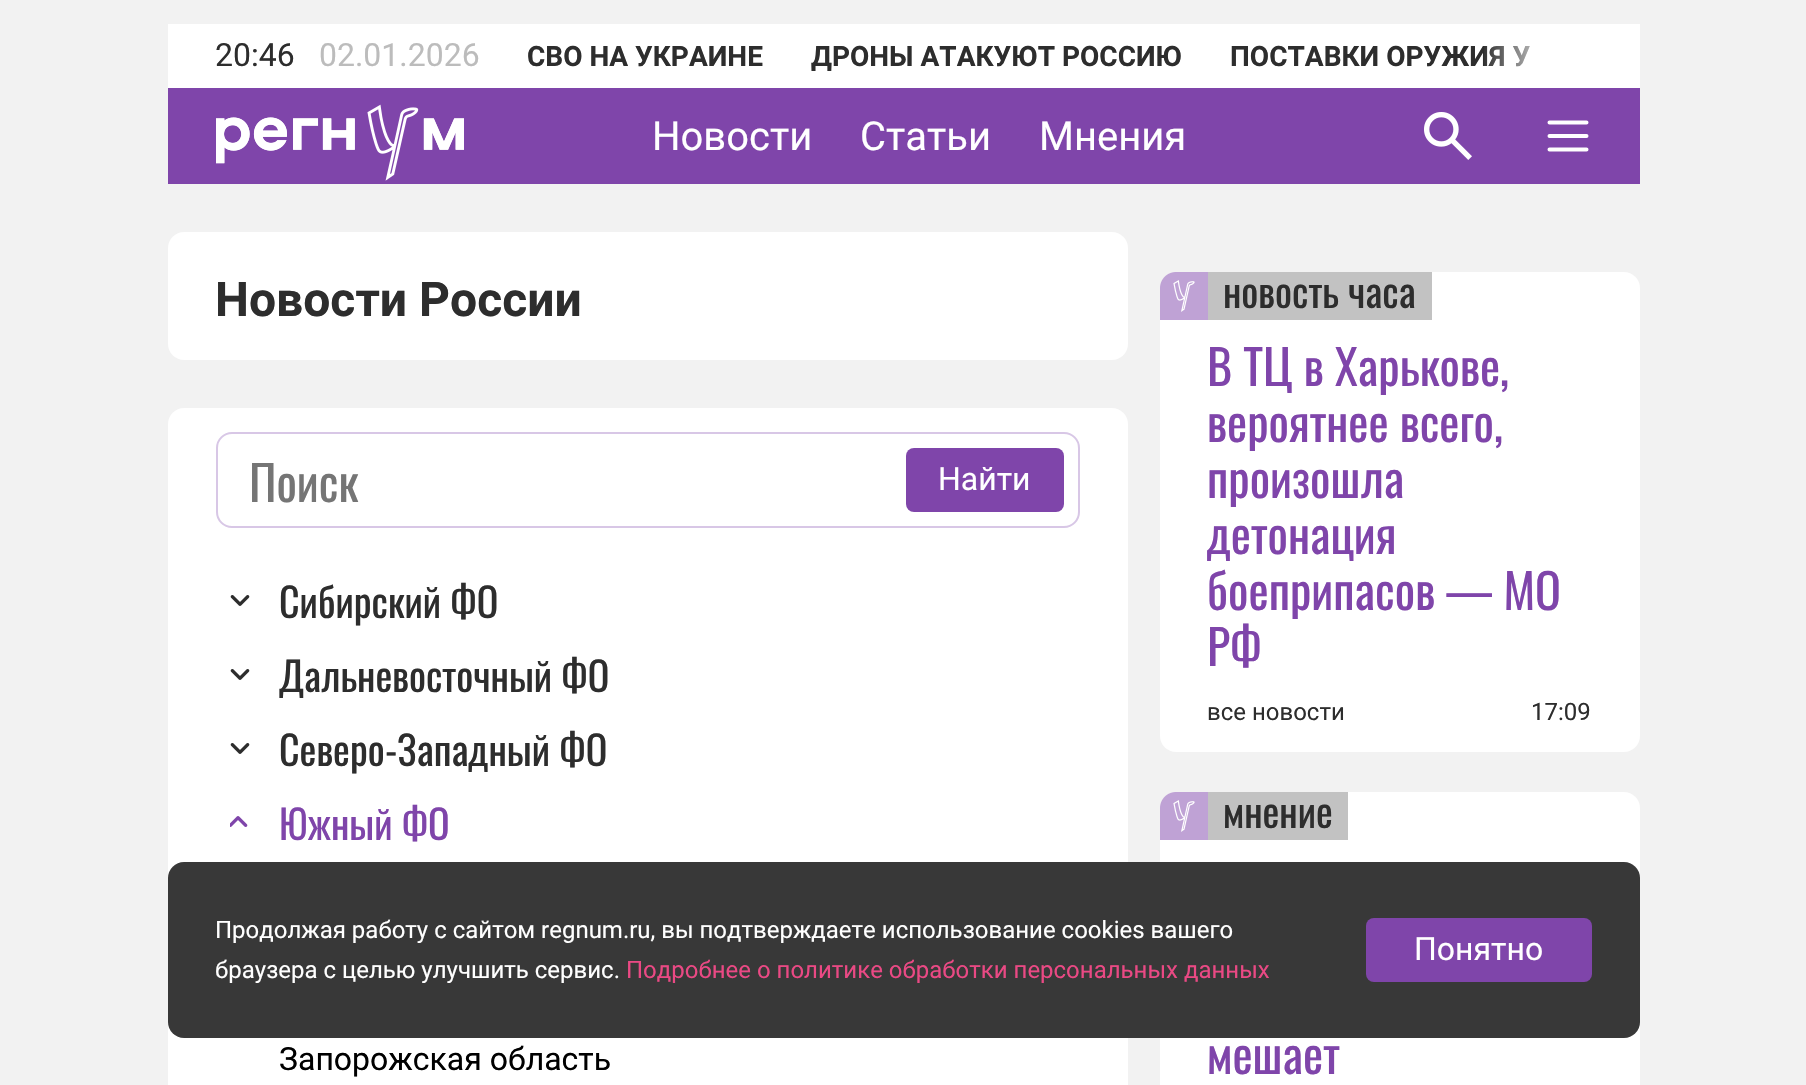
void draw(SkCanvas* canvas) {
    SkPaint paint;
    paint.setAntiAlias(true);
    auto face = [&](const char* family, int weight, float size, bool italic = false) {
        SkFontStyle style(weight, SkFontStyle::kNormal_Width,
            italic ? SkFontStyle::kItalic_Slant : SkFontStyle::kUpright_Slant);
        SkFont result(fontMgr->matchFamilyStyle(family, style), size);
        result.setSubpixel(true);
        return result;
    };
    auto write = [&](const char* s, float x, float y, const SkFont& font, SkColor color) {
        SkPaint ink(SkColor4f::FromColor(color));
        ink.setAntiAlias(true);
        canvas->drawString(s, x, y, font, ink);
    };
    auto block = [&](float x, float y, float w, float h, SkColor color) {
        SkPaint ink(SkColor4f::FromColor(color));
        ink.setAntiAlias(true);
        canvas->drawRect(SkRect::MakeXYWH(x, y, w, h), ink);
    };
    auto card = [&](float x, float y, float w, float h, float radius, SkColor color) {
        SkPaint ink(SkColor4f::FromColor(color));
        ink.setAntiAlias(true);
        canvas->drawRoundRect(SkRect::MakeXYWH(x, y, w, h), radius, radius, ink);
    };
    auto paste = [&](const char* path, float x, float y, float w, float h) {
        auto image = SkImages::DeferredFromEncodedData(SkData::MakeFromFileName(path));
        canvas->drawImageRect(image, SkRect::MakeXYWH(x, y, w, h), SkSamplingOptions());
    };
    canvas->clear(SkColorSetRGB(242, 242, 242));
    block(168, 24, 1472, 64, SK_ColorWHITE);
    auto kFont1 = face("Roboto", 400, 32);
    write("20:46", 215, 66, kFont1, SkColorSetRGB(45, 45, 45));
    write("02.01.2026", 319, 66, kFont1, SkColorSetRGB(188, 188, 188));
    auto kFont2 = face("Roboto", 700, 28);
    write("СВО НА УКРАИНЕ", 527, 66, kFont2, SkColorSetRGB(45, 45, 45));
    write("ДРОНЫ АТАКУЮТ РОССИЮ", 811, 66, kFont2, SkColorSetRGB(45, 45, 45));
    write("ПОСТАВКИ ОРУЖИЯ У", 1230, 66, kFont2, SkColorSetRGB(45, 45, 45));
    {
        const SkColor colors[] = {SK_ColorWHITE, SkColorSetARGB(0, 255, 255, 255)};
        const float stops[] = {0.28f, 1};
        const SkPoint ends[] = {{1594, 56}, {1482, 56}};
        paint.setShader(SkGradientShader::MakeLinear(ends, colors, stops, 2, SkTileMode::kClamp));
        paint.setAlpha(255);
    }
    canvas->drawRect(SkRect::MakeXYWH(1484, 46, 46, 21), paint);
    block(168, 88, 1472, 96, SkColorSetRGB(127, 69, 170));
    paste("pic1.png", 216, 104, 248, 77);
    auto kFont3 = face("Roboto", 400, 40);
    write("Новости", 652, 150, kFont3, SK_ColorWHITE);
    write("Статьи", 860, 150, kFont3, SK_ColorWHITE);
    write("Мнения", 1039, 150, kFont3, SK_ColorWHITE);
    paste("pic2.png", 1424, 112, 48, 48);
    paint.setStyle(SkPaint::kStroke_Style);
    paint.setStrokeWidth(4);
    paint.setStrokeCap(SkPaint::kRound_Cap);
    paint.setStrokeJoin(SkPaint::kRound_Join);
    paint.setShader(nullptr);
    paint.setColor(SK_ColorWHITE);
    canvas->drawPath(SkPathBuilder().moveTo(1549.5f, 149.5f).lineTo(1586.5f, 149.5f).moveTo(1549.5f, 136).lineTo(1586.5f, 136).moveTo(1549.5f, 122.5f).lineTo(1586.5f, 122.5f).detach(), paint);
    card(168, 232, 960, 128, 16, SK_ColorWHITE);
    auto kFont4 = face("Roboto", 700, 48);
    write("Новости России", 215, 316, kFont4, SkColorSetRGB(45, 45, 45));
    card(168, 408, 960, 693, 16, SK_ColorWHITE);
    paint.setStrokeWidth(2);
    paint.setStrokeCap(SkPaint::kButt_Cap);
    paint.setStrokeJoin(SkPaint::kMiter_Join);
    paint.setColor(SkColorSetRGB(216, 199, 230));
    canvas->drawRoundRect(SkRect::MakeXYWH(217, 433, 862, 94), 15, 15, paint);
    auto kFont5 = face("Oswald", 400, 48);
    write("Поиск", 249, 502, kFont5, SkColorSetRGB(117, 117, 117));
    card(906, 448, 158, 64, 8, SkColorSetRGB(127, 69, 170));
    write("Найти", 938, 490, kFont1, SK_ColorWHITE);
    paste("pic3.png", 230, 595, 20, 11);
    auto kFont6 = face("Oswald", 400, 40);
    write("Сибирский ФО", 279, 618, kFont6, SkColorSetRGB(45, 45, 45));
    paste("pic3.png", 230, 669, 20, 11);
    write("Дальневосточный ФО", 279, 692, kFont6, SkColorSetRGB(45, 45, 45));
    paste("pic3.png", 230, 743, 20, 11);
    write("Северо-Западный ФО", 279, 766, kFont6, SkColorSetRGB(45, 45, 45));
    paste("pic4.png", 230, 816, 18, 11);
    write("Южный ФО", 279, 840, kFont6, SkColorSetRGB(127, 69, 170));
    write("Запорожская область", 279, 1070, kFont1, SK_ColorBLACK);
    card(1160, 272, 480, 480, 16, SK_ColorWHITE);
    paste("pic5.png", 1160, 272, 48, 48);
    block(1208, 272, 224, 48, SkColorSetRGB(194, 194, 194));
    write("новость часа", 1223, 308, kFont6, SkColorSetRGB(45, 45, 45));
    write("В ТЦ в Харькове,", 1207, 386, kFont5, SkColorSetRGB(127, 69, 170));
    write("вероятнее всего,", 1207, 442, kFont5, SkColorSetRGB(127, 69, 170));
    write("произошла", 1207, 498, kFont5, SkColorSetRGB(127, 69, 170));
    write("детонация", 1207, 554, kFont5, SkColorSetRGB(127, 69, 170));
    write("боеприпасов — МО", 1207, 610, kFont5, SkColorSetRGB(127, 69, 170));
    write("РФ", 1207, 666, kFont5, SkColorSetRGB(127, 69, 170));
    auto kFont7 = face("Roboto", 400, 24);
    write("все новости", 1207, 720, kFont7, SkColorSetRGB(45, 45, 45));
    write("17:09", 1531, 720, kFont7, SkColorSetRGB(45, 45, 45));
    card(1160, 792, 480, 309, 16, SK_ColorWHITE);
    paste("pic5.png", 1160, 792, 48, 48);
    block(1208, 792, 140, 48, SkColorSetRGB(194, 194, 194));
    write("мнение", 1223, 828, kFont6, SkColorSetRGB(45, 45, 45));
    write("мешает", 1207, 1074, kFont5, SkColorSetRGB(127, 69, 170));
    card(168, 862, 1472, 176, 16, SkColorSetARGB(242, 45, 45, 45));
    write("Продолжая работу с сайтом regnum.ru, вы подтверждаете использование cookies вашего", 215, 938, kFont7, SK_ColorWHITE);
    write("браузера с целью улучшить сервис.", 215, 978, kFont7, SK_ColorWHITE);
    write("Подробнее о политике обработки персональных данных", 626, 978, kFont7, SkColorSetRGB(234, 73, 132));
    card(1366, 918, 226, 64, 8, SkColorSetRGB(127, 69, 170));
    write("Понятно", 1414, 960, kFont1, SK_ColorWHITE);
}
